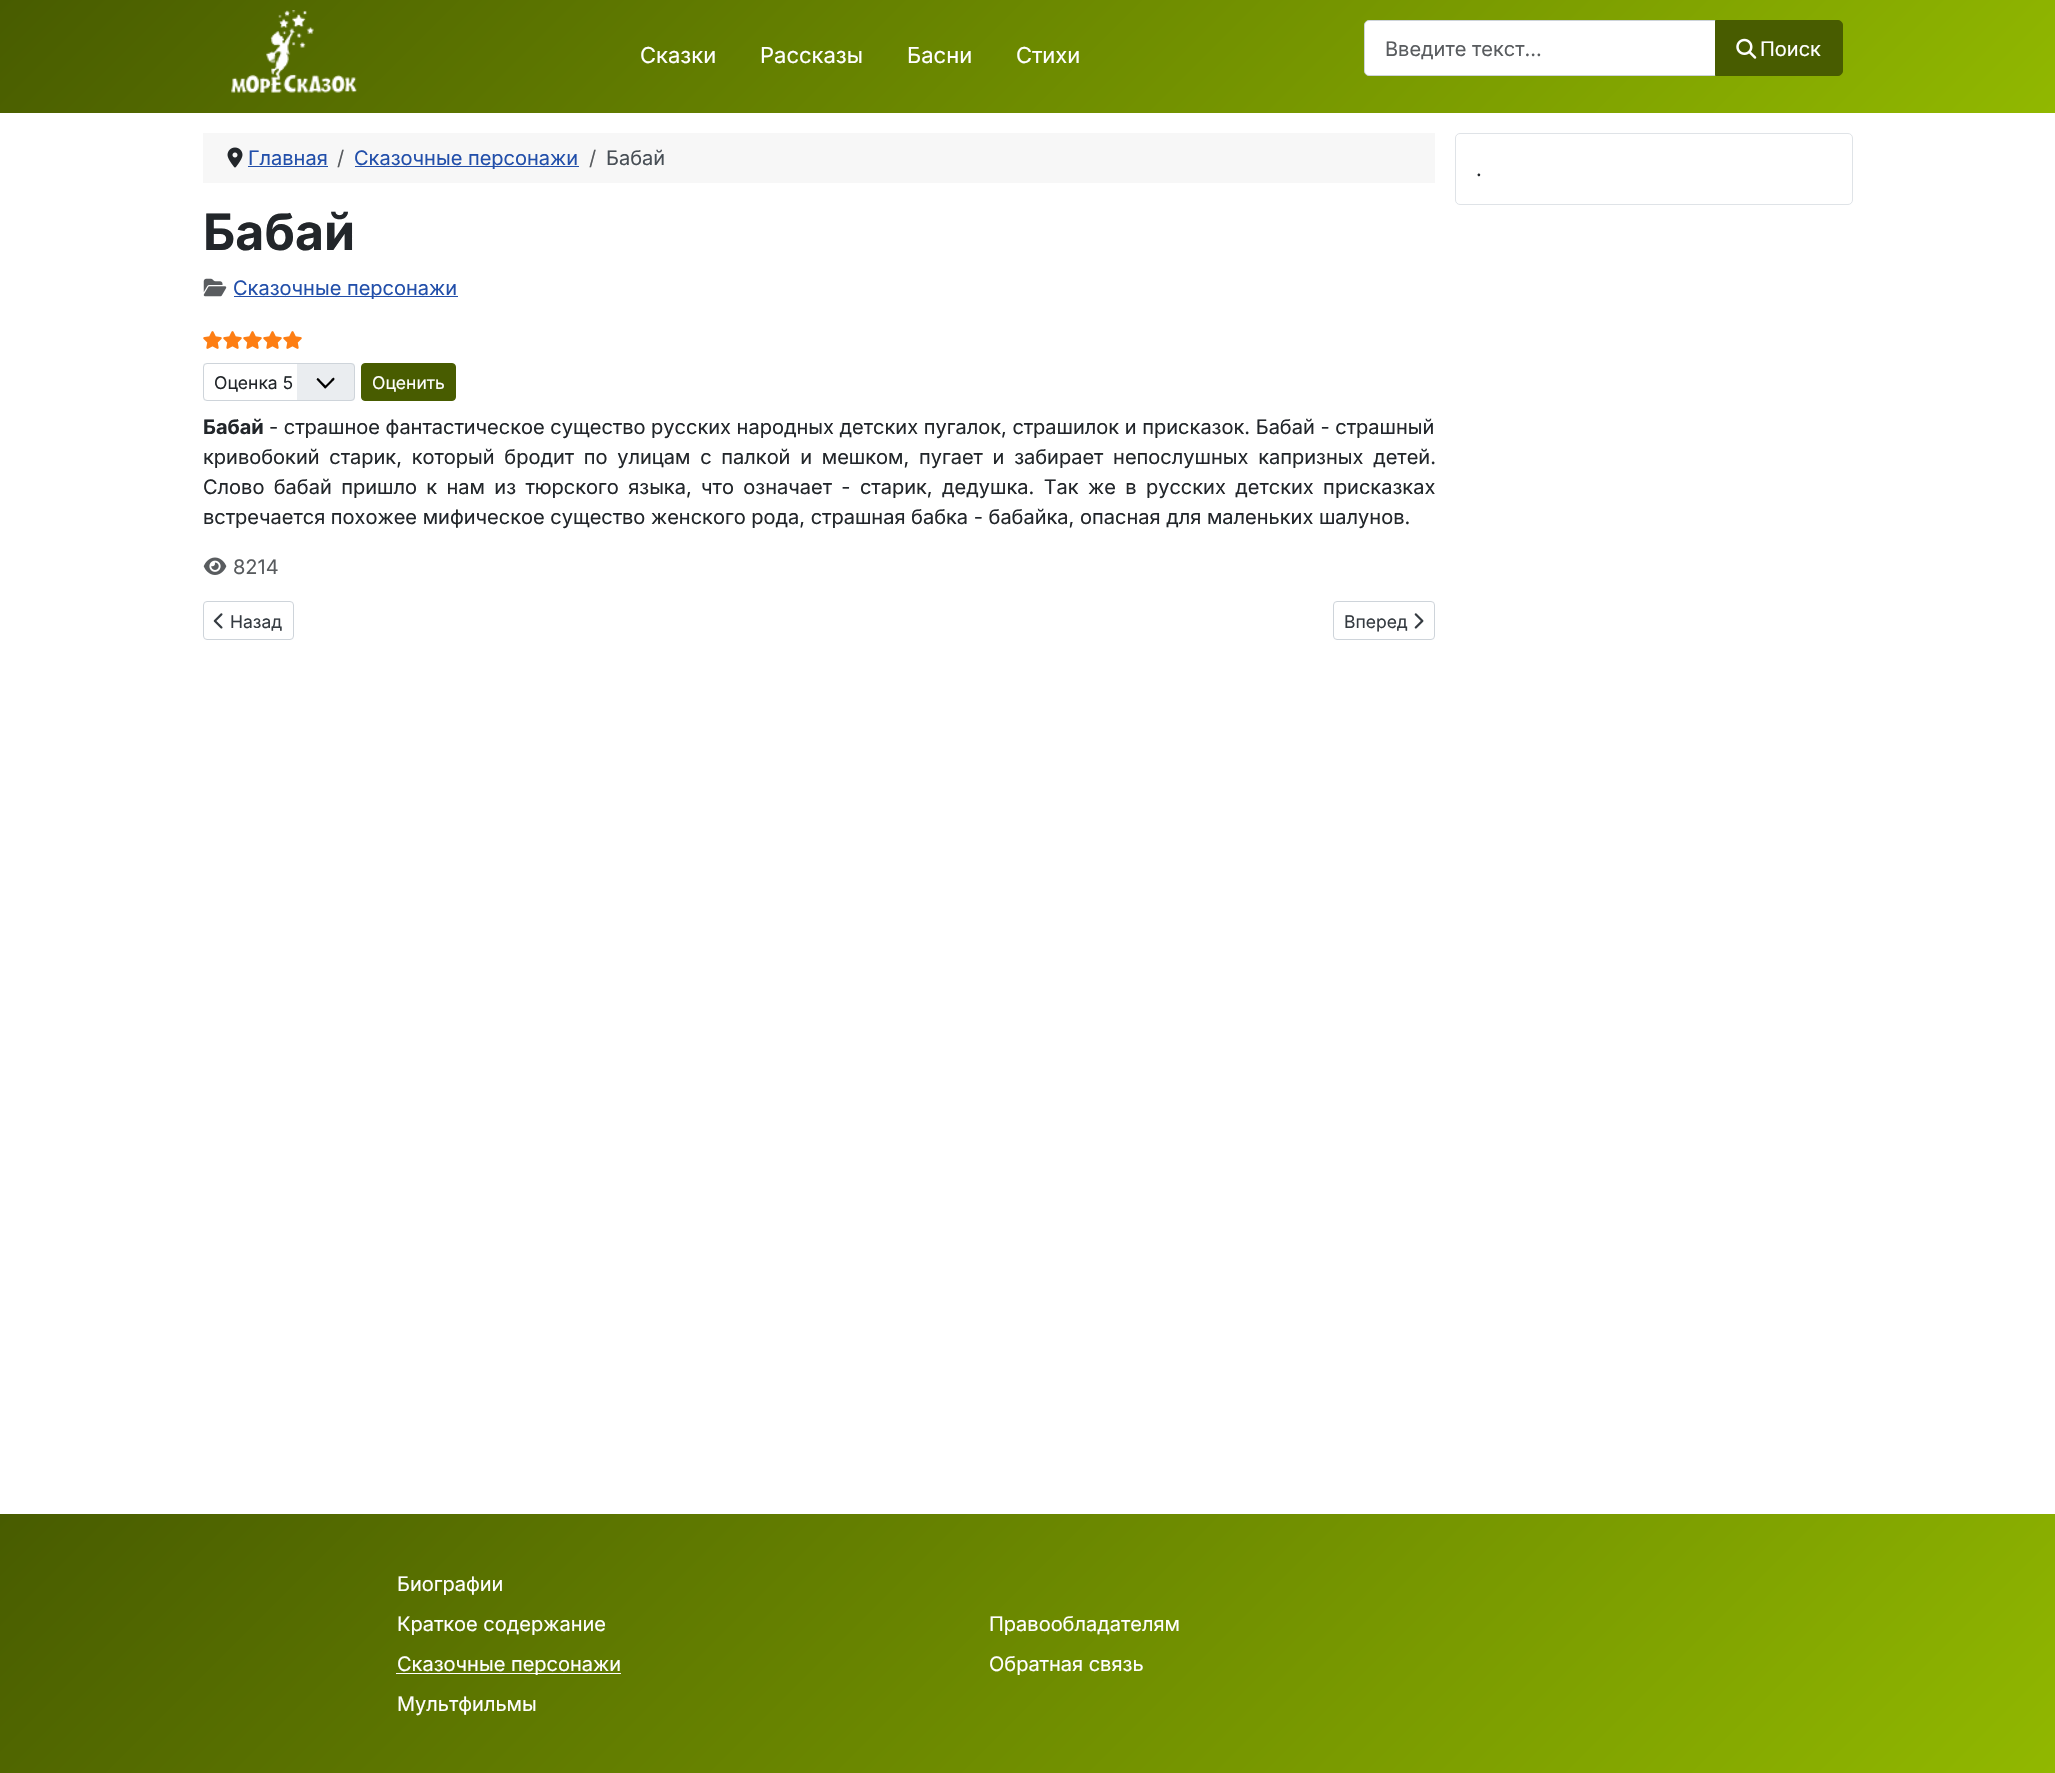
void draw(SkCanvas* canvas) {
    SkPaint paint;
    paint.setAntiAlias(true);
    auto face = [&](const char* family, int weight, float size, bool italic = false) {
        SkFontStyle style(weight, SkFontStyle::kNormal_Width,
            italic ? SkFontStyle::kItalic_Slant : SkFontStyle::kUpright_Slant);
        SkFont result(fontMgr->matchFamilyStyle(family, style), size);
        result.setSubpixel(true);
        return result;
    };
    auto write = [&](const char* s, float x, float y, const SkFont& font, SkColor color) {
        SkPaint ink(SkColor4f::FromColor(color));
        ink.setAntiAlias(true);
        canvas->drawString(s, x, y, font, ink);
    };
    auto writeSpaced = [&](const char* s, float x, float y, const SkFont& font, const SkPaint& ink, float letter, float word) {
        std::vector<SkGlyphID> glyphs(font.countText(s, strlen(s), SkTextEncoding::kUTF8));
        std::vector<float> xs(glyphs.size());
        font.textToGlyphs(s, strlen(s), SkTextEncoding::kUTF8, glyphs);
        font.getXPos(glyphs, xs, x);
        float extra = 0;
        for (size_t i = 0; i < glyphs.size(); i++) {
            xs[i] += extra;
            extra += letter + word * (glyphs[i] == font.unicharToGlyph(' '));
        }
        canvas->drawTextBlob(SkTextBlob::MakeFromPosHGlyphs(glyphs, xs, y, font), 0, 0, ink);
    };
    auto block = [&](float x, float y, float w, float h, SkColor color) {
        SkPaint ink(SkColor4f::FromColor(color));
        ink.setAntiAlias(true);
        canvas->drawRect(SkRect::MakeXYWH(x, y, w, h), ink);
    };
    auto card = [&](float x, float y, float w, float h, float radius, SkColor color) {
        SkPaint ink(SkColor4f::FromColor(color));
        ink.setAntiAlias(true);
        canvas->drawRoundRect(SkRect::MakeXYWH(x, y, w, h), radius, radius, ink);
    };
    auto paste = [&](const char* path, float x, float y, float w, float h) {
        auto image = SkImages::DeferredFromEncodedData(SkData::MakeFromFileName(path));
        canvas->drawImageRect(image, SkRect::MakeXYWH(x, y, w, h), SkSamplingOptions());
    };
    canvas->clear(SK_ColorWHITE);
    {
        const SkColor colors[] = {SkColorSetRGB(72, 92, 0), SkColorSetRGB(145, 184, 0)};
        const float stops[] = {0, 1};
        const SkPoint ends[] = {{486, -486}, {1569, 598}};
        paint.setShader(SkGradientShader::MakeLinear(ends, colors, stops, 2, SkTileMode::kClamp));
        paint.setAlpha(255);
    }
    canvas->drawRect(SkRect::MakeXYWH(0, 0, 2055, 113), paint);
    paste("pic1.png", 231, 10, 126, 83);
    auto kFont1 = face("Inter", 400, 22);
    write("Сказки", 640, 63, kFont1, SK_ColorWHITE);
    write("Рассказы", 760, 63, kFont1, SK_ColorWHITE);
    write("Басни", 907, 63, kFont1, SK_ColorWHITE);
    write("Стихи", 1016, 63, kFont1, SK_ColorWHITE);
    paint.setShader(nullptr);
    paint.setColor(SK_ColorWHITE);
    canvas->drawPath(SkPathBuilder().moveTo(1369, 20.5f).lineTo(1715.5f, 20.5f).lineTo(1715.5f, 75.5f).lineTo(1369, 75.5f).cubicTo(1366.5f, 75.5f, 1364.5f, 73.5f, 1364.5f, 71).lineTo(1364.5f, 25).cubicTo(1364.5f, 22.5f, 1366.5f, 20.5f, 1369, 20.5f).close().detach(), paint);
    paint.setStyle(SkPaint::kStroke_Style);
    paint.setStrokeWidth(1);
    paint.setColor(SkColorSetRGB(206, 212, 218));
    canvas->drawPath(SkPathBuilder().moveTo(1369, 20.5f).lineTo(1715.5f, 20.5f).lineTo(1715.5f, 75.5f).lineTo(1369, 75.5f).cubicTo(1366.5f, 75.5f, 1364.5f, 73.5f, 1364.5f, 71).lineTo(1364.5f, 25).cubicTo(1364.5f, 22.5f, 1366.5f, 20.5f, 1369, 20.5f).close().detach(), paint);
    auto kFont2 = face("Inter", 400, 20);
    write("Введите текст...", 1385, 56, kFont2, SkColorSetRGB(89, 92, 95));
    paint.setStyle(SkPaint::kFill_Style);
    paint.setColor(SkColorSetRGB(72, 92, 0));
    canvas->drawPath(SkPathBuilder().moveTo(1715.5f, 20.5f).lineTo(1838, 20.5f).cubicTo(1840.5f, 20.5f, 1842.5f, 22.5f, 1842.5f, 25).lineTo(1842.5f, 71).cubicTo(1842.5f, 73.5f, 1840.5f, 75.5f, 1838, 75.5f).lineTo(1715.5f, 75.5f).close().detach(), paint);
    paint.setStyle(SkPaint::kStroke_Style);
    canvas->drawPath(SkPathBuilder().moveTo(1715.5f, 20.5f).lineTo(1838, 20.5f).cubicTo(1840.5f, 20.5f, 1842.5f, 22.5f, 1842.5f, 25).lineTo(1842.5f, 71).cubicTo(1842.5f, 73.5f, 1840.5f, 75.5f, 1838, 75.5f).lineTo(1715.5f, 75.5f).close().detach(), paint);
    paste("pic2.png", 1736, 38, 21, 21);
    write("Поиск", 1760, 56, kFont2, SK_ColorWHITE);
    block(203, 133, 1232, 50, SkColorSetRGB(247, 247, 247));
    paste("pic3.png", 227, 147, 16, 21);
    write("Главная", 248, 165, kFont2, SkColorSetRGB(34, 79, 170));
    block(248, 166, 80, 1, SkColorSetRGB(34, 79, 170));
    write("/", 337, 165, kFont2, SkColorSetRGB(89, 92, 95));
    block(355, 166, 224, 1, SkColorSetRGB(34, 79, 170));
    write("Сказочные персонажи", 354, 165, kFont2, SkColorSetRGB(34, 79, 170));
    write("/", 589, 165, kFont2, SkColorSetRGB(89, 92, 95));
    write("Бабай", 606, 165, kFont2, SkColorSetRGB(72, 79, 86));
    auto kFont3 = face("Inter", 700, 50);
    write("Бабай", 203, 250, kFont3, SkColorSetRGB(34, 38, 42));
    paste("pic4.png", 203, 278, 24, 19);
    block(234, 296, 224, 1, SkColorSetRGB(34, 79, 170));
    write("Сказочные персонажи", 233, 295, kFont2, SkColorSetRGB(34, 79, 170));
    paste("pic5.png", 203, 331, 19, 18);
    paste("pic5.png", 223, 331, 19, 18);
    paste("pic5.png", 243, 331, 19, 18);
    paste("pic5.png", 263, 331, 19, 18);
    paste("pic5.png", 283, 331, 19, 18);
    card(203, 363, 152, 38, 4, SkColorSetRGB(234, 237, 240));
    paint.setStyle(SkPaint::kFill_Style);
    paint.setColor(SK_ColorBLACK);
    canvas->drawPath(SkPathBuilder().moveTo(316.5f, 379.5f).lineTo(323.5f, 387).cubicTo(325.5f, 389, 325, 389, 327, 387).lineTo(333, 381).cubicTo(333, 381, 334.5f, 380, 334.5f, 379).cubicTo(334, 375.5f, 330.5f, 380.5f, 330.5f, 380.5f).lineTo(325.5f, 385.5f).lineTo(320.5f, 380.5f).cubicTo(320.5f, 380.5f, 318.5f, 377.5f, 317.5f, 378).close().detach(), paint);
    paint.setColor(SK_ColorWHITE);
    canvas->drawPath(SkPathBuilder().moveTo(207, 363).lineTo(297, 363).lineTo(297, 401).lineTo(207, 401).cubicTo(205, 401, 203, 399, 203, 397).lineTo(203, 367).cubicTo(203, 365, 205, 363, 207, 363).close().detach(), paint);
    paint.setStyle(SkPaint::kStroke_Style);
    paint.setColor(SkColorSetRGB(206, 212, 218));
    canvas->drawRoundRect(SkRect::MakeXYWH(203.5f, 363.5f, 151, 37), 3.5f, 3.5f, paint);
    auto kFont4 = face("Inter", 400, 17.5f);
    write("Оценка 5", 214, 389, kFont4, SkColorSetRGB(34, 38, 42));
    paint.setStyle(SkPaint::kFill_Style);
    paint.setColor(SkColorSetRGB(72, 92, 0));
    canvas->drawRoundRect(SkRect::MakeXYWH(361.5f, 363.5f, 94, 37), 3.5f, 3.5f, paint);
    paint.setStyle(SkPaint::kStroke_Style);
    canvas->drawRoundRect(SkRect::MakeXYWH(361.5f, 363.5f, 94, 37), 3.5f, 3.5f, paint);
    write("Оценить", 372, 389, kFont4, SK_ColorWHITE);
    auto kFont5 = face("Inter", 700, 20);
    write("Бабай", 203, 434, kFont5, SkColorSetRGB(34, 38, 42));
    write("- страшное фантастическое существо русских народных детских пугалок, страшилок и присказок. Бабай - страшный", 269, 434, kFont2, SkColorSetRGB(34, 38, 42));
    paint.setStyle(SkPaint::kFill_Style);
    paint.setColor(SkColorSetRGB(34, 38, 42));
    writeSpaced("кривобокий старик, который бродит по улицам с палкой и мешком, пугает и забирает непослушных капризных детей.", 203, 464, kFont2, paint, 0, 4.1f);
    writeSpaced("Слово бабай пришло к нам из тюрского языка, что означает - старик, дедушка. Так же в русских детских присказках", 203, 494, kFont2, paint, 0, 3.75f);
    write("встречается похожее мифическое существо женского рода, страшная бабка - бабайка, опасная для маленьких шалунов.", 203, 524, kFont2, SkColorSetRGB(34, 38, 42));
    paste("pic6.png", 203, 557, 24, 18);
    write("8214", 233, 574, kFont2, SkColorSetRGB(89, 92, 95));
    paint.setStyle(SkPaint::kStroke_Style);
    paint.setColor(SkColorSetRGB(206, 212, 218));
    canvas->drawRoundRect(SkRect::MakeXYWH(203.5f, 601.5f, 90, 38), 3.5f, 3.5f, paint);
    paste("pic7.png", 213, 613, 10, 16);
    write("Назад", 230, 628, kFont4, SkColorSetRGB(53, 59, 65));
    canvas->drawRoundRect(SkRect::MakeXYWH(1333.5f, 601.5f, 101, 38), 3.5f, 3.5f, paint);
    write("Вперед", 1344, 628, kFont4, SkColorSetRGB(53, 59, 65));
    paste("pic8.png", 1414, 613, 10, 16);
    paint.setColor(SkColorSetRGB(223, 227, 231));
    canvas->drawRoundRect(SkRect::MakeXYWH(1455.5f, 133.5f, 397, 71), 4.5f, 4.5f, paint);
    write(".", 1476, 176, kFont2, SkColorSetRGB(34, 38, 42));
    paint.setStyle(SkPaint::kFill_Style);
    {
        const SkColor colors[] = {SkColorSetRGB(72, 92, 0), SkColorSetRGB(145, 184, 0)};
        const float stops[] = {0, 1};
        const SkPoint ends[] = {{449, 1065}, {1606, 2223}};
        paint.setShader(SkGradientShader::MakeLinear(ends, colors, stops, 2, SkTileMode::kClamp));
        paint.setAlpha(255);
    }
    canvas->drawRect(SkRect::MakeXYWH(0, 1514, 2055, 259), paint);
    write("Биографии", 397, 1591, kFont2, SK_ColorWHITE);
    write("Краткое содержание", 397, 1631, kFont2, SK_ColorWHITE);
    block(396, 1673, 225, 1, SK_ColorWHITE);
    write("Сказочные персонажи", 397, 1671, kFont2, SK_ColorWHITE);
    write("Мультфильмы", 397, 1711, kFont2, SK_ColorWHITE);
    write("Правообладателям", 989, 1631, kFont2, SK_ColorWHITE);
    write("Обратная связь", 989, 1671, kFont2, SK_ColorWHITE);
}
